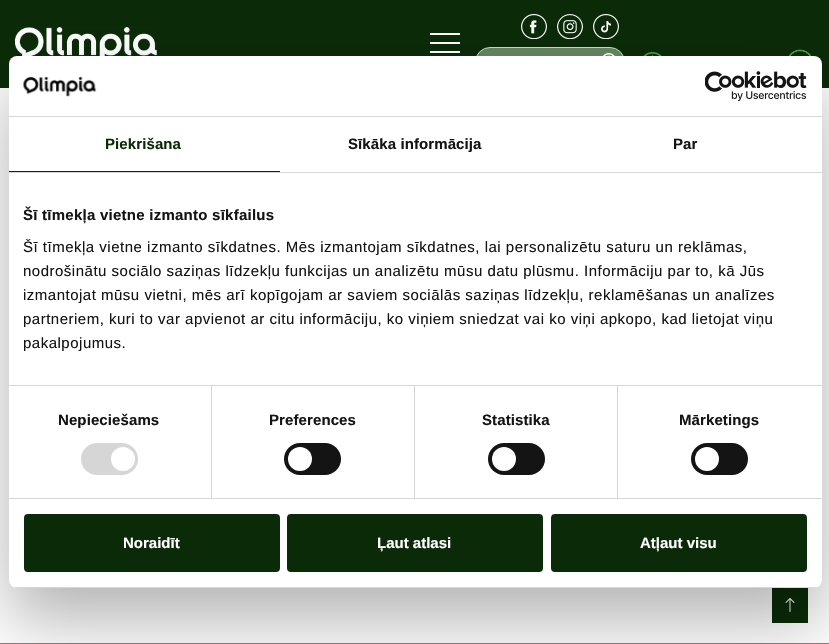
void draw(SkCanvas* canvas) {
    SkPaint paint;
    paint.setAntiAlias(true);
    auto face = [&](const char* family, int weight, float size, bool italic = false) {
        SkFontStyle style(weight, SkFontStyle::kNormal_Width,
            italic ? SkFontStyle::kItalic_Slant : SkFontStyle::kUpright_Slant);
        SkFont result(fontMgr->matchFamilyStyle(family, style), size);
        result.setSubpixel(true);
        return result;
    };
    auto write = [&](const char* s, float x, float y, const SkFont& font, SkColor color) {
        SkPaint ink(SkColor4f::FromColor(color));
        ink.setAntiAlias(true);
        canvas->drawString(s, x, y, font, ink);
    };
    auto writeSpaced = [&](const char* s, float x, float y, const SkFont& font, const SkPaint& ink, float letter, float word) {
        std::vector<SkGlyphID> glyphs(font.countText(s, strlen(s), SkTextEncoding::kUTF8));
        std::vector<float> xs(glyphs.size());
        font.textToGlyphs(s, strlen(s), SkTextEncoding::kUTF8, glyphs);
        font.getXPos(glyphs, xs, x);
        float extra = 0;
        for (size_t i = 0; i < glyphs.size(); i++) {
            xs[i] += extra;
            extra += letter + word * (glyphs[i] == font.unicharToGlyph(' '));
        }
        canvas->drawTextBlob(SkTextBlob::MakeFromPosHGlyphs(glyphs, xs, y, font), 0, 0, ink);
    };
    auto block = [&](float x, float y, float w, float h, SkColor color) {
        SkPaint ink(SkColor4f::FromColor(color));
        ink.setAntiAlias(true);
        canvas->drawRect(SkRect::MakeXYWH(x, y, w, h), ink);
    };
    auto card = [&](float x, float y, float w, float h, float radius, SkColor color) {
        SkPaint ink(SkColor4f::FromColor(color));
        ink.setAntiAlias(true);
        canvas->drawRoundRect(SkRect::MakeXYWH(x, y, w, h), radius, radius, ink);
    };
    auto paste = [&](const char* path, float x, float y, float w, float h) {
        auto image = SkImages::DeferredFromEncodedData(SkData::MakeFromFileName(path));
        canvas->drawImageRect(image, SkRect::MakeXYWH(x, y, w, h), SkSamplingOptions());
    };
    canvas->clear(SK_ColorWHITE);
    block(0, 0, 829, 88, SkColorSetRGB(11, 43, 8));
    paste("pic1.png", 15, 27, 142, 29);
    block(430, 42, 30, 2, SK_ColorWHITE);
    block(430, 33, 30, 2, SK_ColorWHITE);
    block(430, 51, 30, 2, SK_ColorWHITE);
    paste("pic2.png", 521, 14, 26, 25);
    paste("pic3.png", 557, 14, 26, 25);
    paste("pic4.png", 593, 14, 26, 25);
    paint.setColor(SkColorSetRGB(103, 134, 100));
    canvas->drawRoundRect(SkRect::MakeXYWH(475.5f, 47.5f, 149, 29), 14.5f, 14.5f, paint);
    paint.setStyle(SkPaint::kStroke_Style);
    paint.setStrokeWidth(1);
    paint.setColor(SkColorSetRGB(187, 232, 183));
    canvas->drawRoundRect(SkRect::MakeXYWH(475.5f, 47.5f, 149, 29), 14.5f, 14.5f, paint);
    paste("pic5.png", 603, 53, 12, 3);
    paste("pic6.png", 643, 52, 19, 4);
    paste("pic7.png", 789, 49, 22, 7);
    block(772, 588, 36, 35, SkColorSetRGB(11, 43, 8));
    paste("pic8.png", 785, 598, 10, 14);
    block(0, 643, 829, 1, SkColorSetRGB(236, 105, 7));
    paint.setStyle(SkPaint::kFill_Style);
    paint.setColor(SkColorSetARGB(77, 0, 0, 0));
    paint.setMaskFilter(SkMaskFilter::MakeBlur(kNormal_SkBlurStyle, 34));
    canvas->drawRoundRect(SkRect::MakeXYWH(9, 88, 813, 532), 8, 8, paint);
    paint.setMaskFilter(nullptr);
    card(9, 56, 813, 532, 8, SK_ColorWHITE);
    block(9, 116, 813, 1, SkColorSetRGB(214, 214, 214));
    paste("pic9.png", 23, 76, 74, 21);
    paste("pic10.png", 705, 71, 102, 30);
    block(9, 172, 813, 1, SkColorSetRGB(214, 214, 214));
    block(9, 171, 271, 1, SkColorSetRGB(11, 43, 8));
    auto kFont1 = face("Liberation Sans", 700, 15);
    paint.setColor(SkColorSetRGB(11, 43, 8));
    writeSpaced("Piekrišana", 105, 149, kFont1, paint, 0.1f, 0);
    paint.setColor(SkColorSetRGB(20, 20, 20));
    writeSpaced("Sīkāka informācija", 348, 149, kFont1, paint, 0.1f, 0);
    writeSpaced("Par", 673, 149, kFont1, paint, 0.1f, 0);
    block(9, 385, 813, 1, SkColorSetRGB(214, 214, 214));
    writeSpaced("Šī tīmekļa vietne izmanto sīkfailus", 23, 220, kFont1, paint, 0.25f, 0);
    auto kFont2 = face("Liberation Sans", 400, 15);
    writeSpaced("Šī tīmekļa vietne izmanto sīkdatnes. Mēs izmantojam sīkdatnes, lai personalizētu saturu un reklāmas,", 23, 252, kFont2, paint, 0.5f, 0);
    writeSpaced("nodrošinātu sociālo saziņas līdzekļu funkcijas un analizētu mūsu datu plūsmu. Informāciju par to, kā Jūs", 23, 276, kFont2, paint, 0.5f, 0);
    writeSpaced("izmantojat mūsu vietni, mēs arī kopīgojam ar saviem sociālās saziņas līdzekļu, reklamēšanas un analīzes", 23, 300, kFont2, paint, 0.5f, 0);
    writeSpaced("partneriem, kuri to var apvienot ar citu informāciju, ko viņiem sniedzat vai ko viņi apkopo, kad lietojat viņu", 23, 324, kFont2, paint, 0.5f, 0);
    writeSpaced("pakalpojumus.", 23, 348, kFont2, paint, 0.5f, 0);
    block(9, 498, 813, 1, SkColorSetRGB(214, 214, 214));
    block(211, 386, 1, 112, SkColorSetRGB(214, 214, 214));
    writeSpaced("Nepieciešams", 58, 425, kFont1, paint, 0.1f, 0);
    card(81, 443, 57, 32, 16, SkColorSetRGB(214, 214, 214));
    paint.setColor(SK_ColorWHITE);
    canvas->drawCircle(123, 459, 12, paint);
    block(414, 386, 1, 112, SkColorSetRGB(214, 214, 214));
    paint.setColor(SkColorSetRGB(20, 20, 20));
    writeSpaced("Preferences", 269, 425, kFont1, paint, 0.1f, 0);
    card(284, 443, 57, 32, 16, SkColorSetRGB(20, 20, 20));
    paint.setColor(SK_ColorWHITE);
    canvas->drawCircle(300, 459, 12, paint);
    block(617, 386, 1, 112, SkColorSetRGB(214, 214, 214));
    paint.setColor(SkColorSetRGB(20, 20, 20));
    writeSpaced("Statistika", 482, 425, kFont1, paint, 0.1f, 0);
    card(488, 443, 57, 32, 16, SkColorSetRGB(20, 20, 20));
    paint.setColor(SK_ColorWHITE);
    canvas->drawCircle(504, 459, 12, paint);
    paint.setColor(SkColorSetRGB(20, 20, 20));
    writeSpaced("Mārketings", 679, 425, kFont1, paint, 0.1f, 0);
    card(691, 443, 57, 32, 16, SkColorSetRGB(20, 20, 20));
    paint.setColor(SK_ColorWHITE);
    canvas->drawCircle(707, 459, 12, paint);
    canvas->save();
    canvas->clipPath(SkPathBuilder().moveTo(17, 56).lineTo(814, 56).cubicTo(818.5f, 56, 822, 59.5f, 822, 64).lineTo(822, 580).cubicTo(822, 584.5f, 818.5f, 588, 814, 588).lineTo(17, 588).cubicTo(12.5f, 588, 9, 584.5f, 9, 580).lineTo(9, 64).cubicTo(9, 59.5f, 12.5f, 56, 17, 56).close().detach(), true);
    block(9, 587, 813, 1, SkColorSetRGB(214, 214, 214));
    canvas->restore();
    paint.setColor(SkColorSetRGB(11, 43, 8));
    canvas->drawRoundRect(SkRect::MakeXYWH(25, 515, 254, 56), 3, 3, paint);
    paint.setStyle(SkPaint::kStroke_Style);
    paint.setStrokeWidth(2);
    canvas->drawRoundRect(SkRect::MakeXYWH(25, 515, 254, 56), 3, 3, paint);
    write("Noraidīt", 123, 548, kFont1, SK_ColorWHITE);
    paint.setStyle(SkPaint::kFill_Style);
    canvas->drawRoundRect(SkRect::MakeXYWH(288, 515, 254, 56), 3, 3, paint);
    paint.setStyle(SkPaint::kStroke_Style);
    canvas->drawRoundRect(SkRect::MakeXYWH(288, 515, 254, 56), 3, 3, paint);
    write("Ļaut atlasi", 377, 548, kFont1, SK_ColorWHITE);
    paint.setStyle(SkPaint::kFill_Style);
    canvas->drawRoundRect(SkRect::MakeXYWH(552, 515, 254, 56), 3, 3, paint);
    paint.setStyle(SkPaint::kStroke_Style);
    canvas->drawRoundRect(SkRect::MakeXYWH(552, 515, 254, 56), 3, 3, paint);
    write("Atļaut visu", 640, 548, kFont1, SK_ColorWHITE);
}
